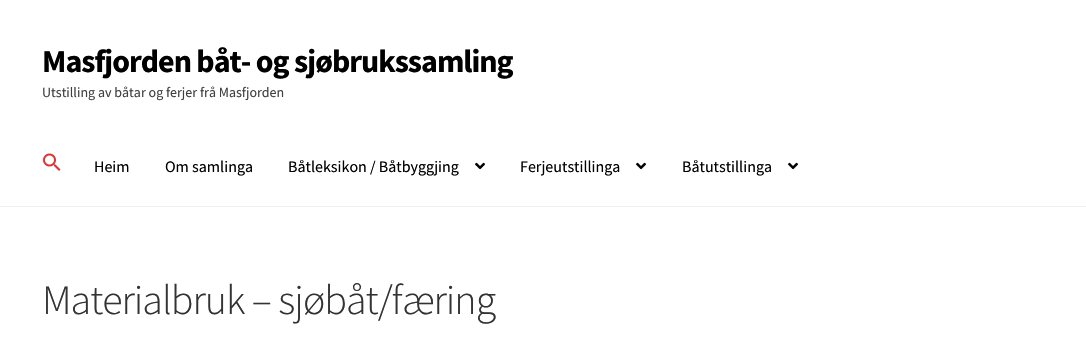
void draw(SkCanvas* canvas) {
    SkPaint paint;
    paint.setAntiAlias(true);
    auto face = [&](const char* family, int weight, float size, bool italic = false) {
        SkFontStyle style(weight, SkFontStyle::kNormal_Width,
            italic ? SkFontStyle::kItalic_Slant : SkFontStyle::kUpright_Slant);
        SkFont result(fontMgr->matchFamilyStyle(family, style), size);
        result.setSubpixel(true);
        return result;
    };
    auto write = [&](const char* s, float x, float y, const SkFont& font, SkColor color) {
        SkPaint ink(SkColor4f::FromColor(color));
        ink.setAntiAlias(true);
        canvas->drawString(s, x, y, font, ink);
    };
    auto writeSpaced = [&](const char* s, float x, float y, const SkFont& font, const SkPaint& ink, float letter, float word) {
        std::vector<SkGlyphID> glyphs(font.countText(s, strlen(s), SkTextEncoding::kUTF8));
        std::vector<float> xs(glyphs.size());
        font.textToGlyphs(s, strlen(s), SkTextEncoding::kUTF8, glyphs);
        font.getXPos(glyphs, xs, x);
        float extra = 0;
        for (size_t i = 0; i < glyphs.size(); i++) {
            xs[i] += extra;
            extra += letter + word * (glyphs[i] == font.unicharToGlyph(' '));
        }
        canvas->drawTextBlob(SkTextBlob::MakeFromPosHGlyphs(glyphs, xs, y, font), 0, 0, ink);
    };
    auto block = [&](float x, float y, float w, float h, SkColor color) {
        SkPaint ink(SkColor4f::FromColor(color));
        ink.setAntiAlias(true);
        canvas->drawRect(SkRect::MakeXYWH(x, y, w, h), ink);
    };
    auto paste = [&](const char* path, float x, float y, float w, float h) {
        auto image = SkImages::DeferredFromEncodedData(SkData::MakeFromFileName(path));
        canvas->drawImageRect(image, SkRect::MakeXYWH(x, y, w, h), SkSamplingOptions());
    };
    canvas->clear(SK_ColorWHITE);
    block(0, 206, 1086, 1, SkColorSetRGB(240, 240, 240));
    auto kFont1 = face("Source Sans Pro", 700, 32);
    paint.setColor(SK_ColorBLACK);
    writeSpaced("Masfjorden båt- og sjøbrukssamling", 42, 72, kFont1, paint, -1, 0);
    auto kFont2 = face("Source Sans Pro", 400, 14);
    write("Utstilling av båtar og ferjer frå Masfjorden", 42, 97, kFont2, SkColorSetRGB(64, 64, 64));
    paste("pic1.png", 43, 153, 18, 18);
    auto kFont3 = face("Source Sans Pro", 400, 16);
    write("Heim", 94, 172, kFont3, SK_ColorBLACK);
    write("Om samlinga", 165, 172, kFont3, SK_ColorBLACK);
    write("Båtleksikon / Båtbyggjing", 288, 172, kFont3, SK_ColorBLACK);
    paste("pic2.png", 475, 162, 10, 8);
    write("Ferjeutstillinga", 520, 172, kFont3, SK_ColorBLACK);
    paste("pic2.png", 636, 162, 10, 8);
    write("Båtutstillinga", 682, 172, kFont3, SK_ColorBLACK);
    paste("pic2.png", 788, 162, 10, 8);
    auto kFont4 = face("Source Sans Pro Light", 300, 41.9f);
    paint.setColor(SkColorSetRGB(51, 51, 51));
    writeSpaced("Materialbruk – sjøbåt/færing", 42, 314, kFont4, paint, -1, 0);
}
